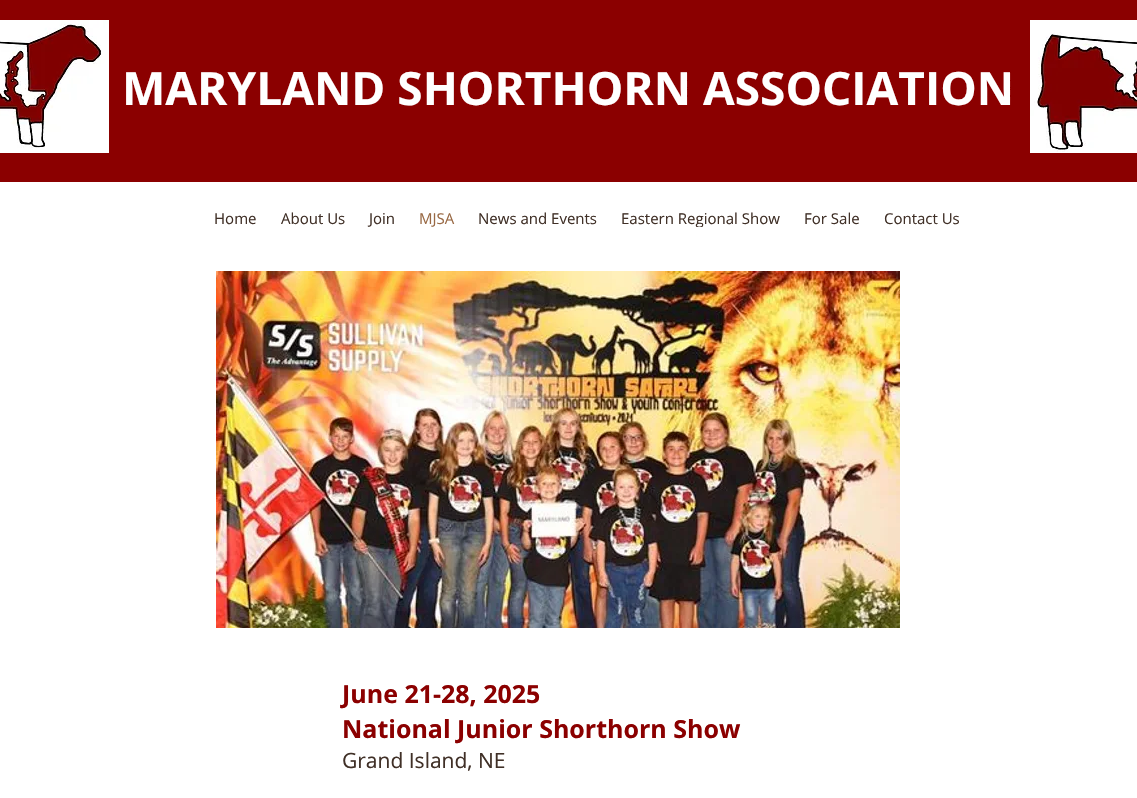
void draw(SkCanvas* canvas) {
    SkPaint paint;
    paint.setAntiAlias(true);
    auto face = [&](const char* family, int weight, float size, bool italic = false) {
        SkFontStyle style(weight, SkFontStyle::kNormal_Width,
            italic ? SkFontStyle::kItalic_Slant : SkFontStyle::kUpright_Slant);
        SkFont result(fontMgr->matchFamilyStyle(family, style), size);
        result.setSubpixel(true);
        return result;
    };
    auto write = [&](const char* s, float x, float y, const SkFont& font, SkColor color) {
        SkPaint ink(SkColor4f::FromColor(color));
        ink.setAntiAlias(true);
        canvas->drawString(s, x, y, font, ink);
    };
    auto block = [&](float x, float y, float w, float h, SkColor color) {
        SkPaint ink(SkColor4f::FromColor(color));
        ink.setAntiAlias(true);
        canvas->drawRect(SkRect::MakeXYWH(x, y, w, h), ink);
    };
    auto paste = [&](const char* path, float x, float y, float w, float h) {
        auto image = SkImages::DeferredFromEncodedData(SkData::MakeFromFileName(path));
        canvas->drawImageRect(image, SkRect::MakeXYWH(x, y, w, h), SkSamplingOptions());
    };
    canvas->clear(SK_ColorWHITE);
    block(0, 0, 1137, 182, SkColorSetRGB(139, 0, 0));
    paste("pic1.png", 0, 20, 109, 133);
    auto kFont1 = face("Open Sans", 700, 46);
    write("MARYLAND SHORTHORN ASSOCIATION", 122, 105, kFont1, SK_ColorWHITE);
    paste("pic2.png", 1030, 20, 107, 133);
    auto kFont2 = face("Open Sans", 400, 15);
    write("Home", 214, 224, kFont2, SkColorSetRGB(64, 48, 39));
    write("About Us", 281, 224, kFont2, SkColorSetRGB(64, 48, 39));
    write("Join", 369, 224, kFont2, SkColorSetRGB(64, 48, 39));
    write("MJSA", 419, 224, kFont2, SkColorSetRGB(153, 105, 68));
    write("News and Events", 478, 224, kFont2, SkColorSetRGB(64, 48, 39));
    write("Eastern Regional Show", 621, 224, kFont2, SkColorSetRGB(64, 48, 39));
    write("For Sale", 804, 224, kFont2, SkColorSetRGB(64, 48, 39));
    write("Contact Us", 884, 224, kFont2, SkColorSetRGB(64, 48, 39));
    block(696, 227, 6, 1, SK_ColorWHITE);
    paste("pic3.png", 216, 271, 684, 357);
    auto kFont3 = face("Open Sans", 700, 25);
    write("June 21-28, 2025", 342, 703, kFont3, SkColorSetRGB(139, 0, 0));
    write("National Junior Shorthorn Show", 342, 738, kFont3, SkColorSetRGB(139, 0, 0));
    auto kFont4 = face("Open Sans", 400, 21);
    write("Grand Island, NE", 342, 768, kFont4, SkColorSetRGB(64, 48, 39));
}
